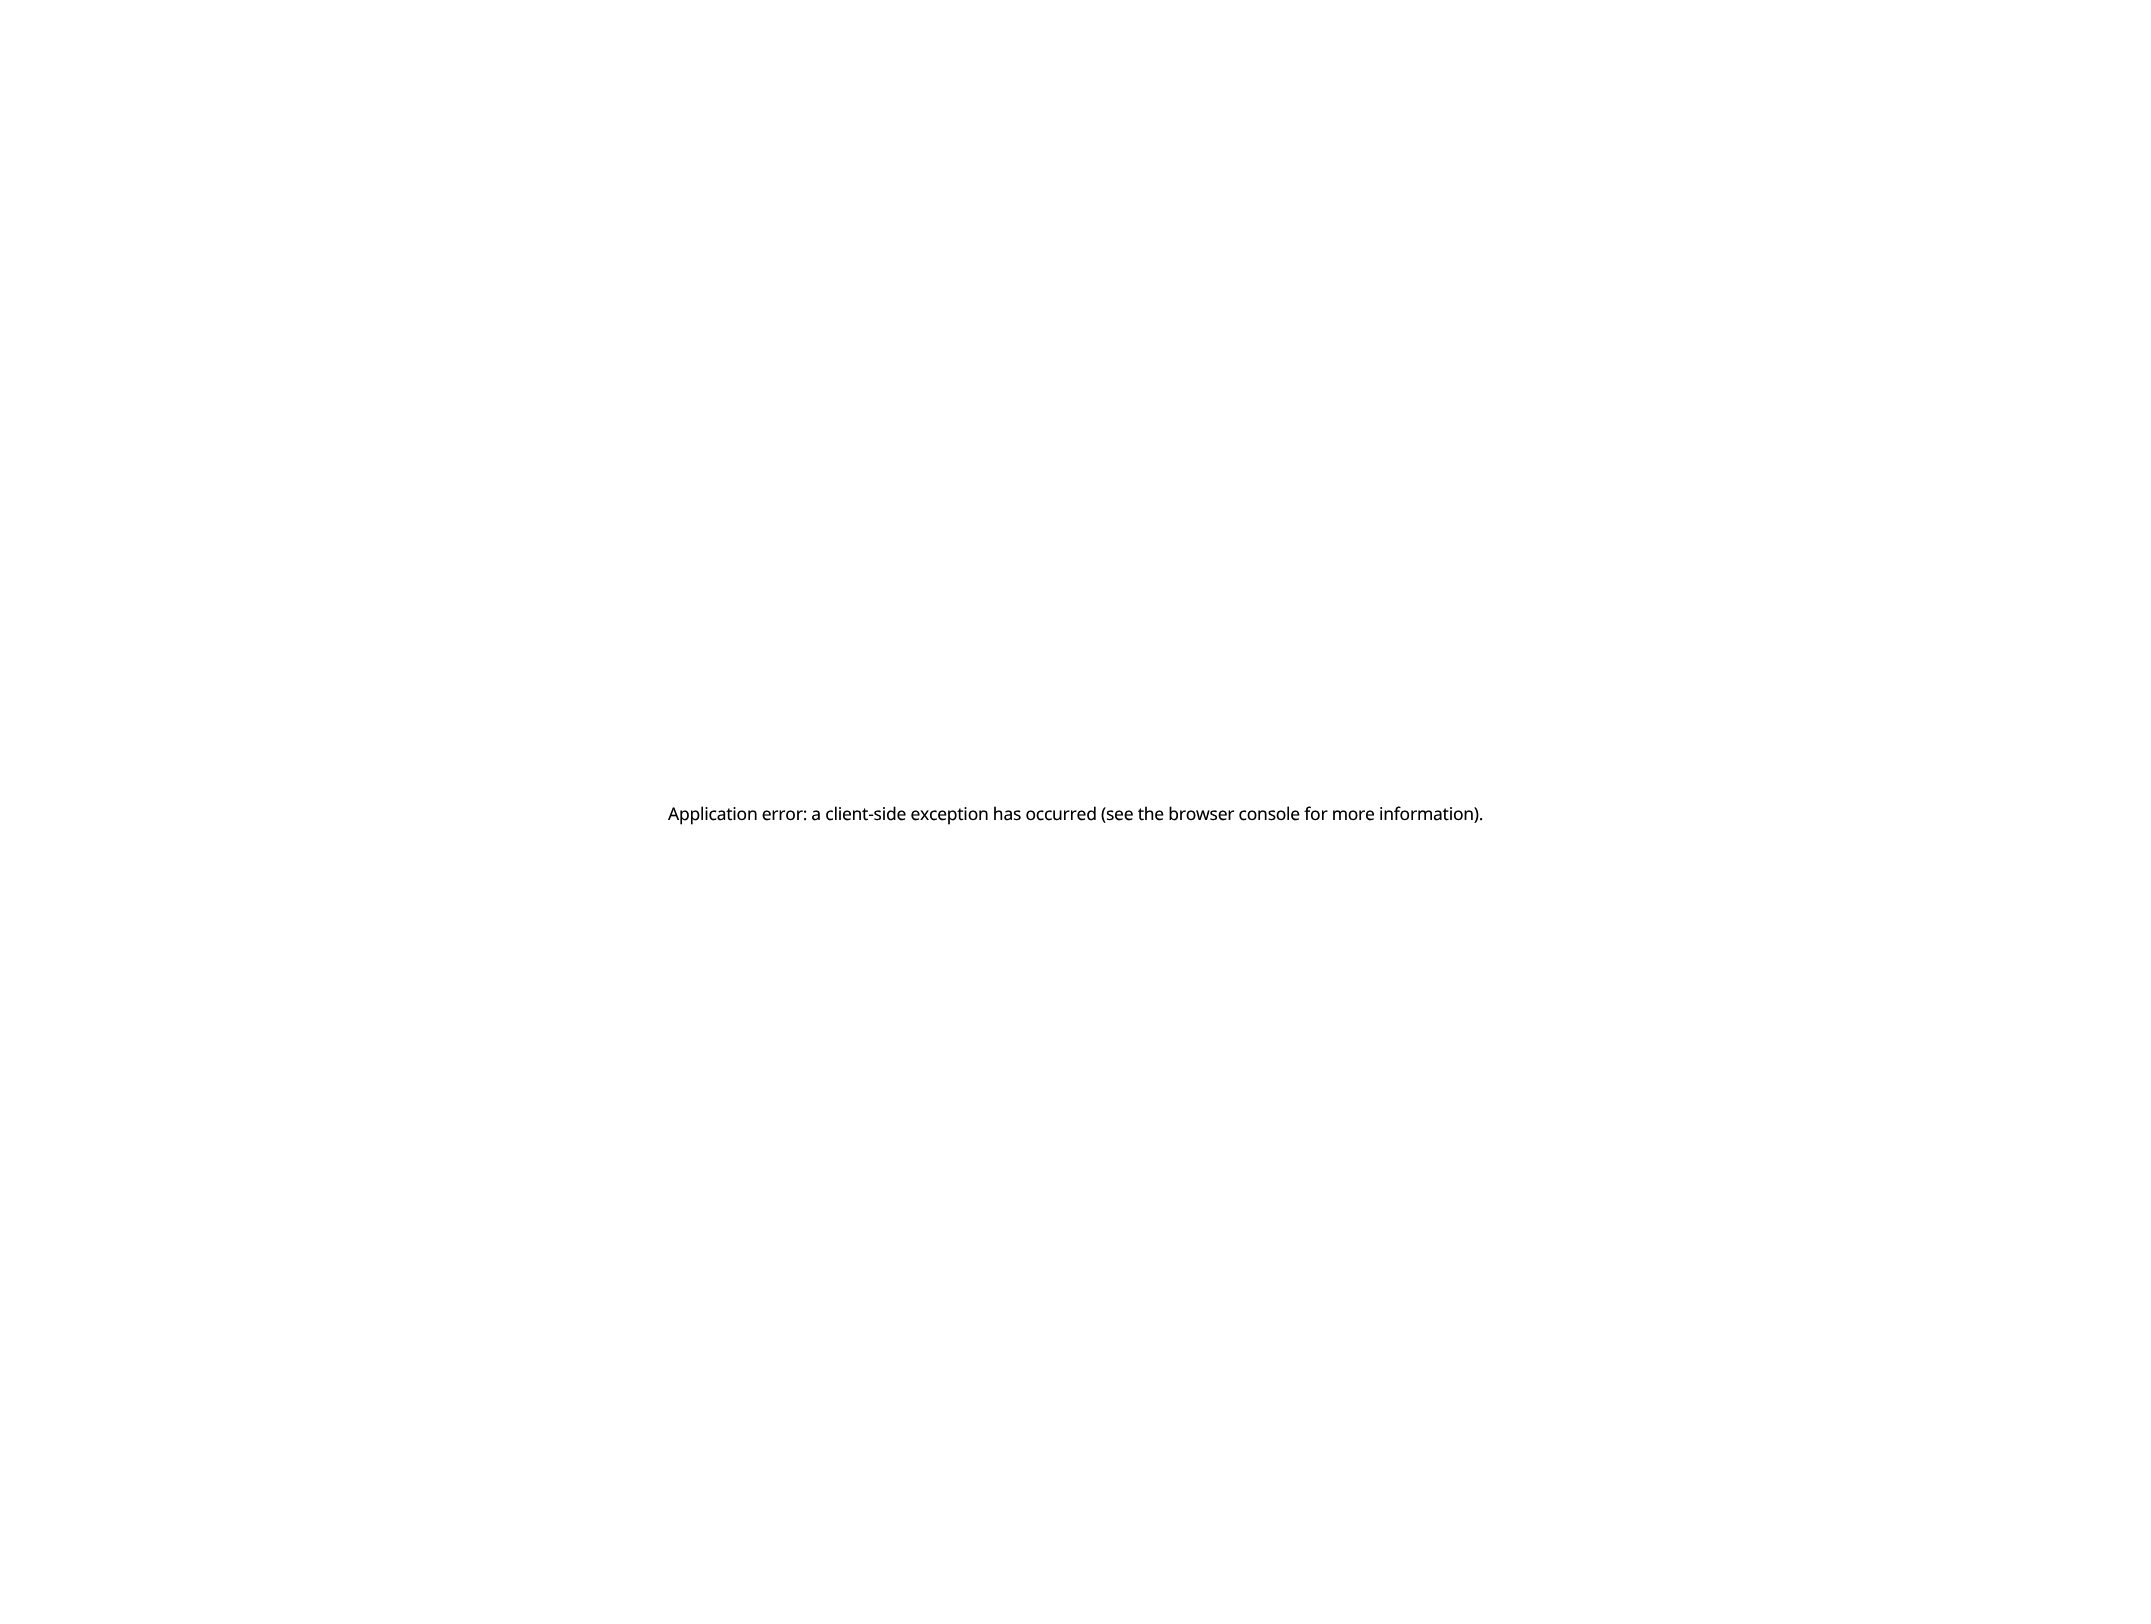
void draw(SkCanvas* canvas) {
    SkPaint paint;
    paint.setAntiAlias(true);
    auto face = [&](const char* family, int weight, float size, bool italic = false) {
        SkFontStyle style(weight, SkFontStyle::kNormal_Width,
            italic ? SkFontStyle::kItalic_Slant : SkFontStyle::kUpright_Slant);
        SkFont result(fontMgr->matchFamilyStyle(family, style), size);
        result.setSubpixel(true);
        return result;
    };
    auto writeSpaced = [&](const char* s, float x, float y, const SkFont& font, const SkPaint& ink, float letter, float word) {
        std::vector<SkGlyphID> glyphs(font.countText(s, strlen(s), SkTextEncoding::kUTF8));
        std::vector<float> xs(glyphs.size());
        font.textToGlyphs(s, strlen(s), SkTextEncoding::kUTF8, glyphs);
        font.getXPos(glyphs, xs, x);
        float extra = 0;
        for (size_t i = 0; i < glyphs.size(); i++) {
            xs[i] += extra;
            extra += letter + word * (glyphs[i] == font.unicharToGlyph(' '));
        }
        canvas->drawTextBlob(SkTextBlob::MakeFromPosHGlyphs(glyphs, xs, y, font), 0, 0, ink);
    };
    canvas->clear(SK_ColorWHITE);
    auto kFont1 = face("Noto Sans", 400, 17.5f);
    paint.setColor(SK_ColorBLACK);
    writeSpaced("Application error: a client-side exception has occurred (see the browser console for more information).", 668, 820, kFont1, paint, -0.25f, 0);
}
